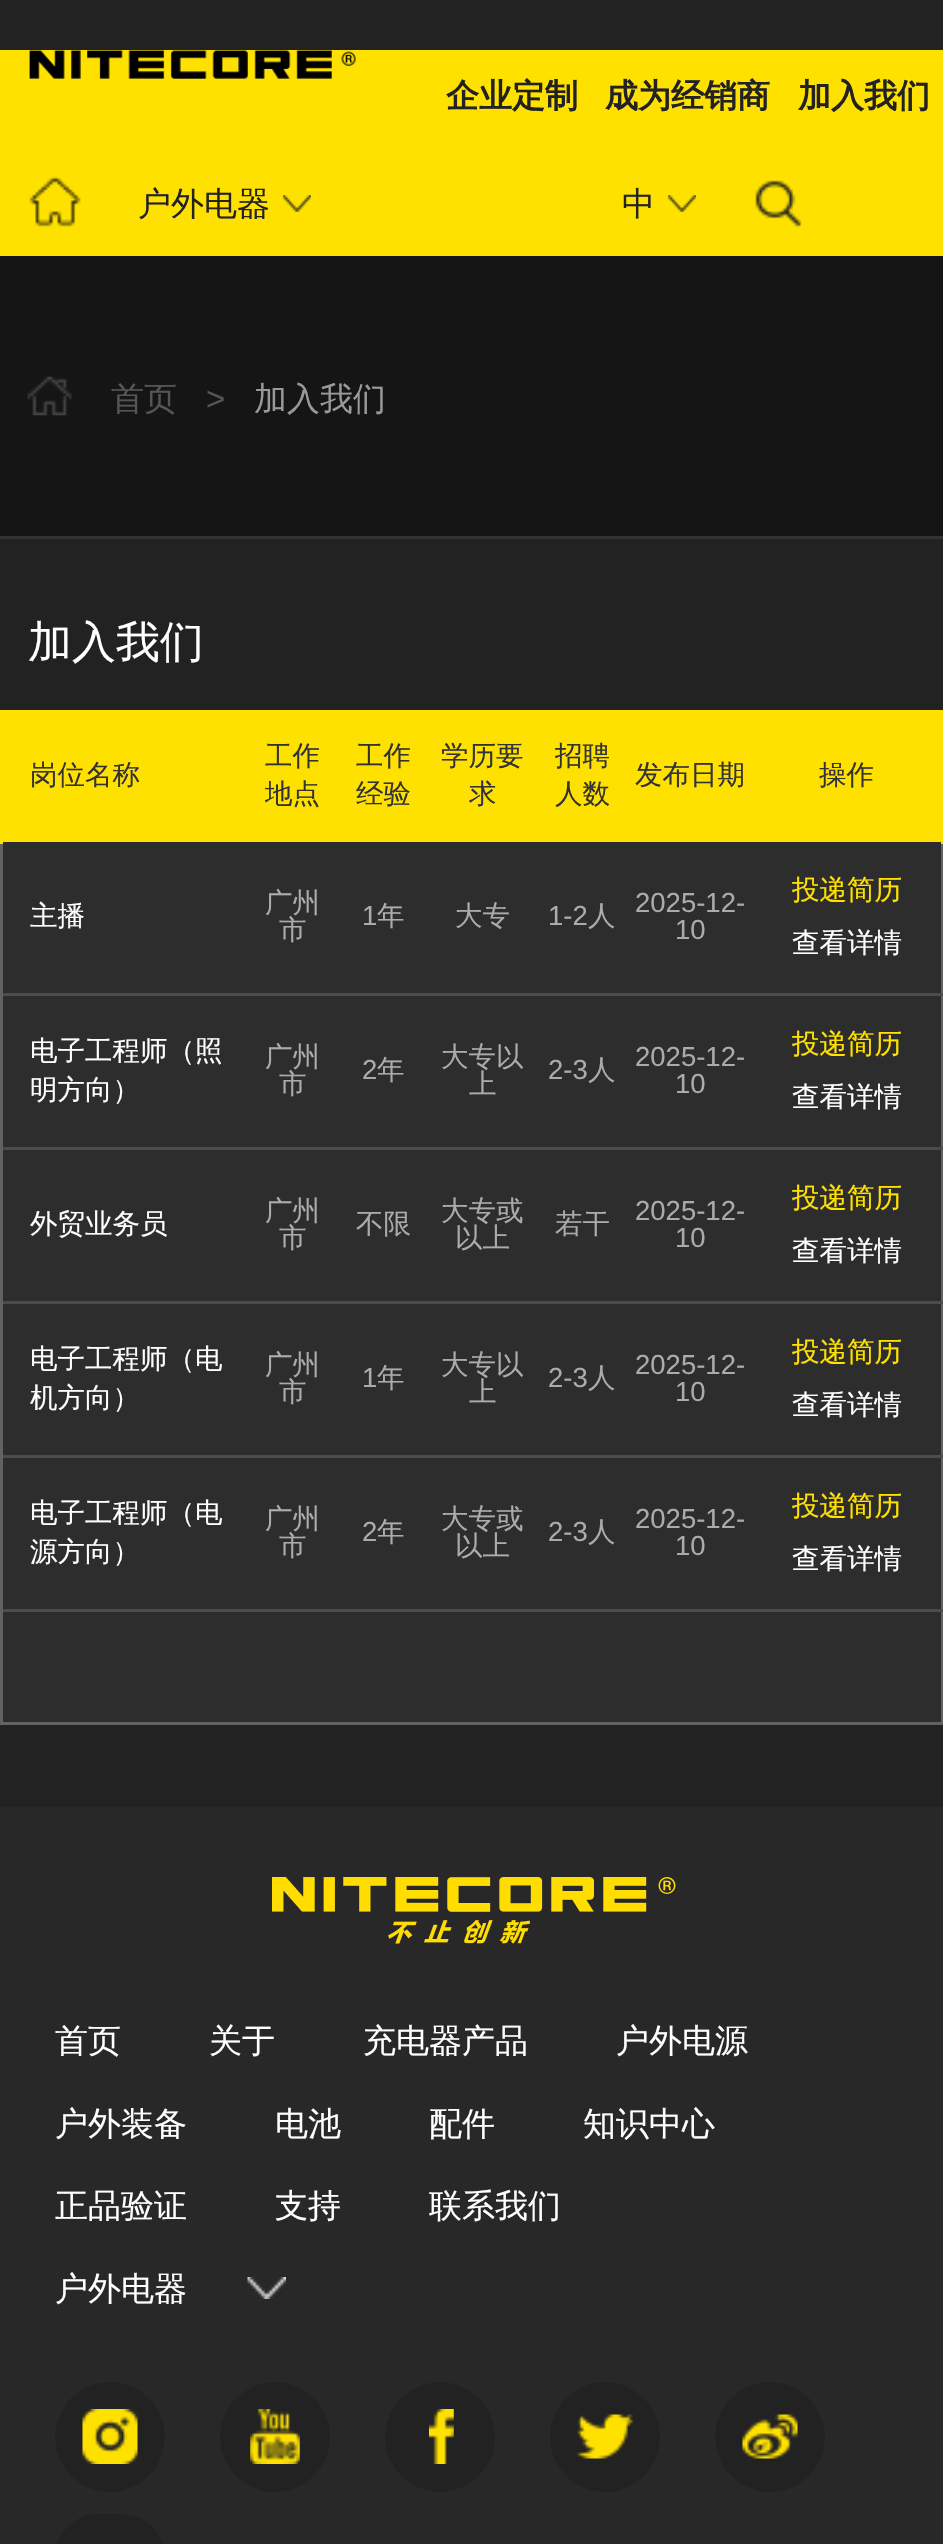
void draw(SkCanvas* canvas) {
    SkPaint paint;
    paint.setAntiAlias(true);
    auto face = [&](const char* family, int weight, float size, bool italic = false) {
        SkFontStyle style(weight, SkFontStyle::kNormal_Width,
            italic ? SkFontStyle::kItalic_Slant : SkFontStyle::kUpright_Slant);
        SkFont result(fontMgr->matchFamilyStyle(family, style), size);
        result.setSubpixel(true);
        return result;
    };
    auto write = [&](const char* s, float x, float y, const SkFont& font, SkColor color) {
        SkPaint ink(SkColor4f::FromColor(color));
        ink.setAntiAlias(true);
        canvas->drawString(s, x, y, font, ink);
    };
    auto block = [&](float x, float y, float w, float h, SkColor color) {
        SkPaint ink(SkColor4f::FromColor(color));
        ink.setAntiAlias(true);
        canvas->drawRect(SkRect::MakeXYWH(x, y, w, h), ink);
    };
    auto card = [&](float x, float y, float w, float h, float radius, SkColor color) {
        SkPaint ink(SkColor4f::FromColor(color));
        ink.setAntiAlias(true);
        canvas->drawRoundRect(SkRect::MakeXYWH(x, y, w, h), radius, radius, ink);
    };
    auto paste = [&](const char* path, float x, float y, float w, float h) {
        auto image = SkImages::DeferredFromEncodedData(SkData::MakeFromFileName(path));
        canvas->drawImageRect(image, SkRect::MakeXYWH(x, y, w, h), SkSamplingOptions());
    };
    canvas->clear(SkColorSetRGB(34, 34, 34));
    block(0, 50, 943, 206, SkColorSetRGB(255, 225, 0));
    paste("pic1.png", 29, 50, 327, 29);
    auto kFont1 = face("WenQuanYi Zen Hei", 700, 33);
    write("企业定制", 446, 107, kFont1, SkColorSetRGB(34, 34, 34));
    write("成为经销商", 605, 107, kFont1, SkColorSetRGB(34, 34, 34));
    write("加入我们", 798, 107, kFont1, SkColorSetRGB(34, 34, 34));
    paste("pic2.png", 29, 176, 52, 51);
    auto kFont2 = face("WenQuanYi Zen Hei", 500, 33);
    write("户外电器", 138, 215, kFont2, SkColorSetRGB(34, 34, 34));
    paste("pic3.png", 283, 195, 28, 17);
    write("中", 622, 215, kFont2, SkColorSetRGB(34, 34, 34));
    paste("pic3.png", 668, 195, 28, 17);
    paste("pic4.png", 755, 180, 47, 47);
    block(0, 256, 943, 280, SkColorSetRGB(21, 21, 21));
    block(0, 536, 943, 3, SkColorSetRGB(51, 51, 51));
    paste("pic5.png", 27, 376, 45, 40);
    write("首页", 111, 410, kFont2, SkColorSetRGB(85, 85, 85));
    auto kFont3 = face("Liberation Sans", 400, 33);
    write(">", 206, 410, kFont3, SkColorSetRGB(85, 85, 85));
    write("加入我们", 254, 410, kFont2, SkColorSetRGB(153, 153, 153));
    auto kFont4 = face("WenQuanYi Zen Hei", 500, 44);
    write("加入我们", 28, 657, kFont4, SK_ColorWHITE);
    block(3, 842, 938, 767, SkColorSetRGB(45, 45, 45));
    block(3, 710, 938, 132, SkColorSetRGB(255, 225, 0));
    block(941, 842, 2, 882, SkColorSetRGB(98, 98, 98));
    block(0, 1609, 943, 3, SkColorSetRGB(76, 76, 76));
    block(0, 1455, 3, 157, SkColorSetRGB(98, 98, 98));
    block(0, 1455, 943, 3, SkColorSetRGB(76, 76, 76));
    block(0, 1301, 3, 157, SkColorSetRGB(98, 98, 98));
    block(0, 1301, 943, 3, SkColorSetRGB(76, 76, 76));
    block(0, 1147, 3, 157, SkColorSetRGB(98, 98, 98));
    block(0, 1147, 943, 3, SkColorSetRGB(76, 76, 76));
    block(0, 993, 3, 157, SkColorSetRGB(98, 98, 98));
    block(0, 993, 943, 3, SkColorSetRGB(76, 76, 76));
    block(0, 842, 3, 154, SkColorSetRGB(98, 98, 98));
    block(0, 710, 3, 134, SkColorSetRGB(255, 225, 0));
    auto kFont5 = face("WenQuanYi Zen Hei", 500, 27.5f);
    write("岗位名称", 30, 784, kFont5, SkColorSetRGB(51, 51, 51));
    write("工作", 265, 765, kFont5, SkColorSetRGB(51, 51, 51));
    write("地点", 265, 803, kFont5, SkColorSetRGB(51, 51, 51));
    write("工作", 356, 765, kFont5, SkColorSetRGB(51, 51, 51));
    write("经验", 356, 803, kFont5, SkColorSetRGB(51, 51, 51));
    write("学历要", 441, 765, kFont5, SkColorSetRGB(51, 51, 51));
    write("求", 469, 803, kFont5, SkColorSetRGB(51, 51, 51));
    write("招聘", 555, 765, kFont5, SkColorSetRGB(51, 51, 51));
    write("人数", 555, 803, kFont5, SkColorSetRGB(51, 51, 51));
    write("发布日期", 635, 784, kFont5, SkColorSetRGB(51, 51, 51));
    block(941, 710, 2, 134, SkColorSetRGB(255, 225, 0));
    write("操作", 819, 784, kFont5, SkColorSetRGB(51, 51, 51));
    write("主播", 30, 925, kFont5, SK_ColorWHITE);
    write("广州", 265, 912, kFont5, SkColorSetRGB(171, 171, 171));
    write("市", 279, 939, kFont5, SkColorSetRGB(171, 171, 171));
    auto kFont6 = face("Liberation Sans", 400, 27.5f);
    write("1", 362, 925, kFont6, SkColorSetRGB(171, 171, 171));
    write("年", 377, 925, kFont5, SkColorSetRGB(171, 171, 171));
    write("大专", 455, 925, kFont5, SkColorSetRGB(171, 171, 171));
    write("1-2", 548, 925, kFont6, SkColorSetRGB(171, 171, 171));
    write("人", 588, 925, kFont5, SkColorSetRGB(171, 171, 171));
    write("2025-12-", 635, 912, kFont6, SkColorSetRGB(171, 171, 171));
    write("10", 675, 939, kFont6, SkColorSetRGB(171, 171, 171));
    write("投递简历", 792, 899, kFont5, SkColorSetRGB(255, 225, 0));
    write("查看详情", 792, 952, kFont5, SK_ColorWHITE);
    write("电子工程师（照", 30, 1060, kFont5, SK_ColorWHITE);
    write("明方向）", 30, 1099, kFont5, SK_ColorWHITE);
    write("广州", 265, 1066, kFont5, SkColorSetRGB(171, 171, 171));
    write("市", 279, 1093, kFont5, SkColorSetRGB(171, 171, 171));
    write("2", 362, 1079, kFont6, SkColorSetRGB(171, 171, 171));
    write("年", 377, 1079, kFont5, SkColorSetRGB(171, 171, 171));
    write("大专以", 441, 1066, kFont5, SkColorSetRGB(171, 171, 171));
    write("上", 469, 1093, kFont5, SkColorSetRGB(171, 171, 171));
    write("2-3", 548, 1079, kFont6, SkColorSetRGB(171, 171, 171));
    write("人", 588, 1079, kFont5, SkColorSetRGB(171, 171, 171));
    write("2025-12-", 635, 1066, kFont6, SkColorSetRGB(171, 171, 171));
    write("10", 675, 1093, kFont6, SkColorSetRGB(171, 171, 171));
    write("投递简历", 792, 1053, kFont5, SkColorSetRGB(255, 225, 0));
    write("查看详情", 792, 1106, kFont5, SK_ColorWHITE);
    write("外贸业务员", 30, 1233, kFont5, SK_ColorWHITE);
    write("广州", 265, 1220, kFont5, SkColorSetRGB(171, 171, 171));
    write("市", 279, 1247, kFont5, SkColorSetRGB(171, 171, 171));
    write("不限", 356, 1233, kFont5, SkColorSetRGB(171, 171, 171));
    write("大专或", 441, 1220, kFont5, SkColorSetRGB(171, 171, 171));
    write("以上", 455, 1247, kFont5, SkColorSetRGB(171, 171, 171));
    write("若干", 555, 1233, kFont5, SkColorSetRGB(171, 171, 171));
    write("2025-12-", 635, 1220, kFont6, SkColorSetRGB(171, 171, 171));
    write("10", 675, 1247, kFont6, SkColorSetRGB(171, 171, 171));
    write("投递简历", 792, 1207, kFont5, SkColorSetRGB(255, 225, 0));
    write("查看详情", 792, 1260, kFont5, SK_ColorWHITE);
    write("电子工程师（电", 30, 1368, kFont5, SK_ColorWHITE);
    write("机方向）", 30, 1407, kFont5, SK_ColorWHITE);
    write("广州", 265, 1374, kFont5, SkColorSetRGB(171, 171, 171));
    write("市", 279, 1401, kFont5, SkColorSetRGB(171, 171, 171));
    write("1", 362, 1387, kFont6, SkColorSetRGB(171, 171, 171));
    write("年", 377, 1387, kFont5, SkColorSetRGB(171, 171, 171));
    write("大专以", 441, 1374, kFont5, SkColorSetRGB(171, 171, 171));
    write("上", 469, 1401, kFont5, SkColorSetRGB(171, 171, 171));
    write("2-3", 548, 1387, kFont6, SkColorSetRGB(171, 171, 171));
    write("人", 588, 1387, kFont5, SkColorSetRGB(171, 171, 171));
    write("2025-12-", 635, 1374, kFont6, SkColorSetRGB(171, 171, 171));
    write("10", 675, 1401, kFont6, SkColorSetRGB(171, 171, 171));
    write("投递简历", 792, 1361, kFont5, SkColorSetRGB(255, 225, 0));
    write("查看详情", 792, 1414, kFont5, SK_ColorWHITE);
    write("电子工程师（电", 30, 1522, kFont5, SK_ColorWHITE);
    write("源方向）", 30, 1561, kFont5, SK_ColorWHITE);
    write("广州", 265, 1528, kFont5, SkColorSetRGB(171, 171, 171));
    write("市", 279, 1555, kFont5, SkColorSetRGB(171, 171, 171));
    write("2", 362, 1541, kFont6, SkColorSetRGB(171, 171, 171));
    write("年", 377, 1541, kFont5, SkColorSetRGB(171, 171, 171));
    write("大专或", 441, 1528, kFont5, SkColorSetRGB(171, 171, 171));
    write("以上", 455, 1555, kFont5, SkColorSetRGB(171, 171, 171));
    write("2-3", 548, 1541, kFont6, SkColorSetRGB(171, 171, 171));
    write("人", 588, 1541, kFont5, SkColorSetRGB(171, 171, 171));
    write("2025-12-", 635, 1528, kFont6, SkColorSetRGB(171, 171, 171));
    write("10", 675, 1555, kFont6, SkColorSetRGB(171, 171, 171));
    write("投递简历", 792, 1515, kFont5, SkColorSetRGB(255, 225, 0));
    write("查看详情", 792, 1568, kFont5, SK_ColorWHITE);
    block(3, 1612, 938, 110, SkColorSetRGB(45, 45, 45));
    block(0, 1722, 943, 3, SkColorSetRGB(98, 98, 98));
    block(0, 1612, 3, 112, SkColorSetRGB(98, 98, 98));
    block(0, 1807, 943, 737, SkColorSetRGB(40, 40, 40));
    paste("pic6.png", 272, 1877, 404, 67);
    write("首页", 55, 2052, kFont2, SK_ColorWHITE);
    write("关于", 209, 2052, kFont2, SK_ColorWHITE);
    write("充电器产品", 363, 2052, kFont2, SK_ColorWHITE);
    write("户外电源", 616, 2052, kFont2, SK_ColorWHITE);
    write("户外装备", 55, 2135, kFont2, SK_ColorWHITE);
    write("电池", 275, 2135, kFont2, SK_ColorWHITE);
    write("配件", 429, 2135, kFont2, SK_ColorWHITE);
    write("知识中心", 583, 2135, kFont2, SK_ColorWHITE);
    write("正品验证", 55, 2217, kFont2, SK_ColorWHITE);
    write("支持", 275, 2217, kFont2, SK_ColorWHITE);
    write("联系我们", 429, 2217, kFont2, SK_ColorWHITE);
    write("户外电器", 55, 2300, kFont2, SK_ColorWHITE);
    paste("pic7.png", 247, 2277, 39, 22);
    paint.setColor(SkColorSetRGB(34, 34, 34));
    canvas->drawCircle(110, 2437, 55, paint);
    paste("pic8.png", 82, 2409, 56, 55);
    canvas->drawCircle(275, 2437, 55, paint);
    paste("pic9.png", 250, 2409, 50, 55);
    canvas->drawCircle(440, 2437, 55, paint);
    paste("pic10.png", 429, 2409, 25, 55);
    canvas->drawCircle(605, 2437, 55, paint);
    paste("pic11.png", 577, 2414, 56, 45);
    canvas->drawCircle(770, 2437, 55, paint);
    paste("pic12.png", 742, 2414, 56, 45);
    card(55, 2514, 110, 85, 55, SkColorSetRGB(34, 34, 34));
}
